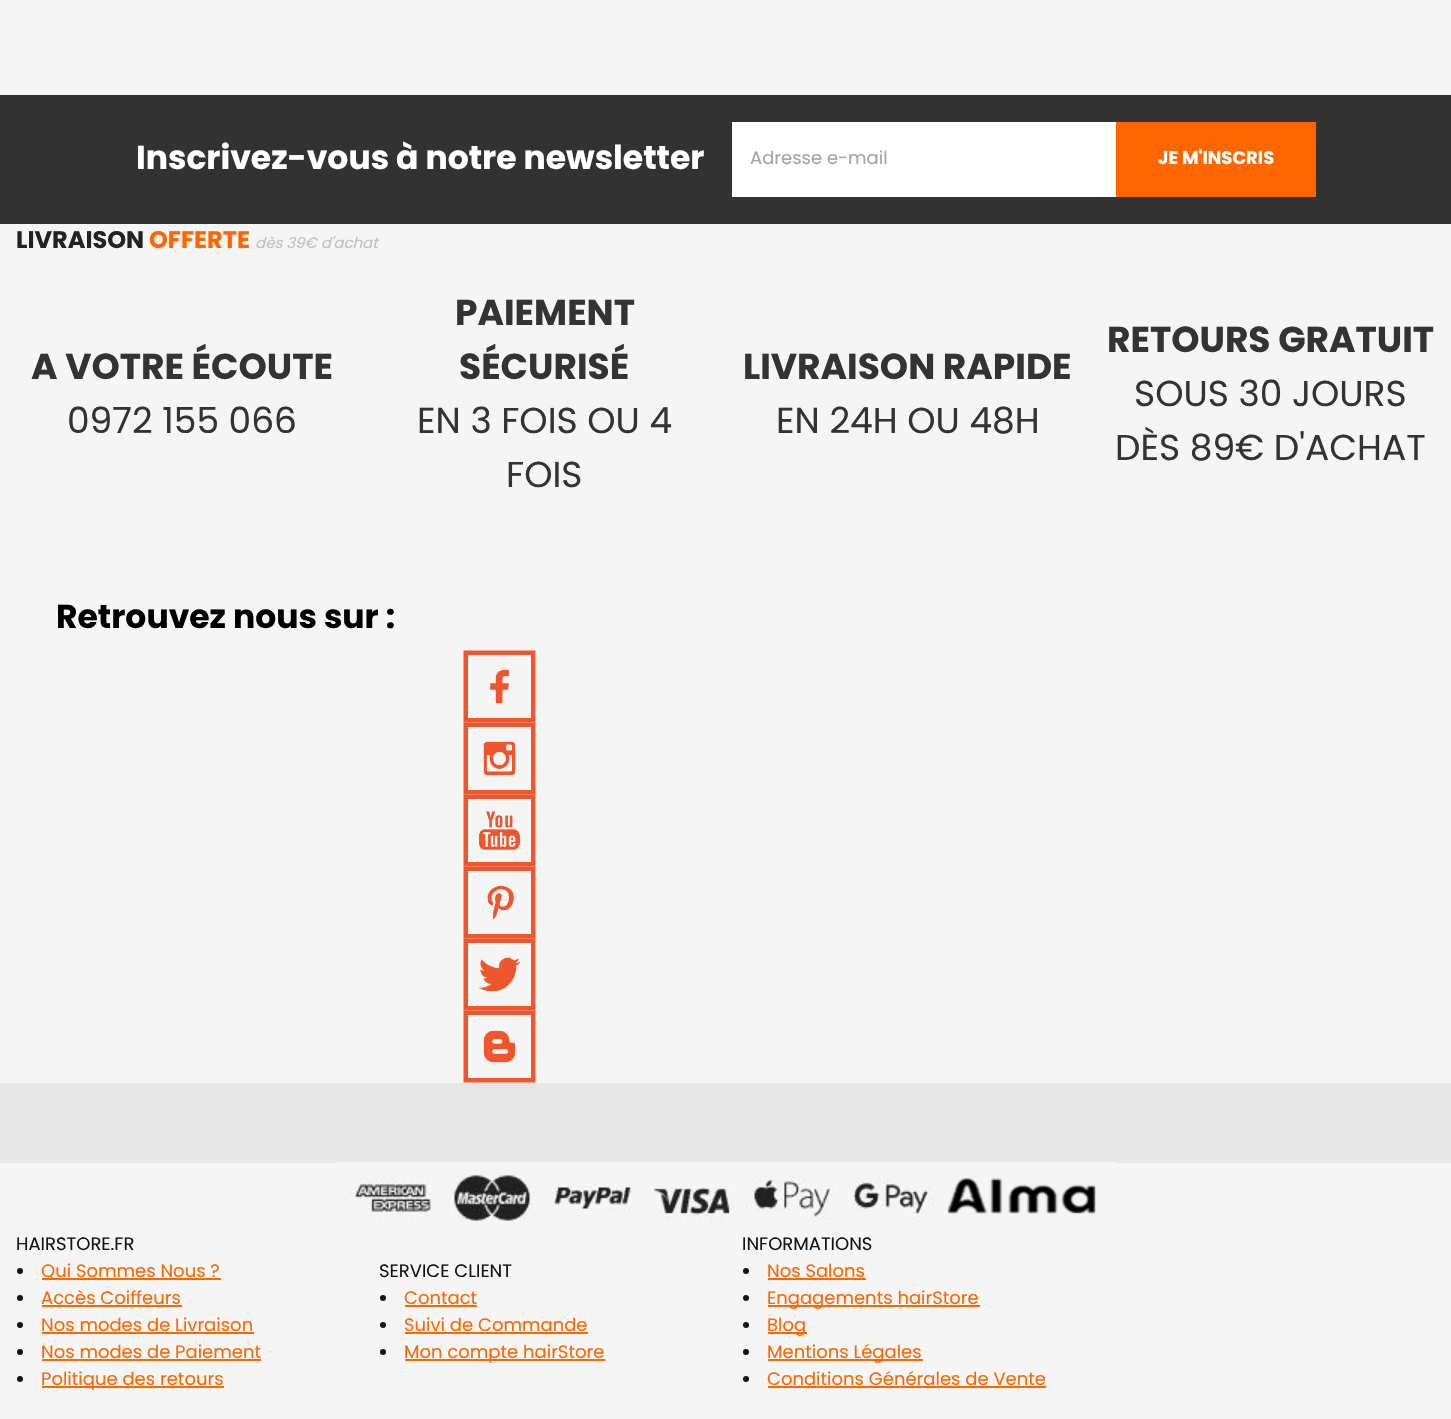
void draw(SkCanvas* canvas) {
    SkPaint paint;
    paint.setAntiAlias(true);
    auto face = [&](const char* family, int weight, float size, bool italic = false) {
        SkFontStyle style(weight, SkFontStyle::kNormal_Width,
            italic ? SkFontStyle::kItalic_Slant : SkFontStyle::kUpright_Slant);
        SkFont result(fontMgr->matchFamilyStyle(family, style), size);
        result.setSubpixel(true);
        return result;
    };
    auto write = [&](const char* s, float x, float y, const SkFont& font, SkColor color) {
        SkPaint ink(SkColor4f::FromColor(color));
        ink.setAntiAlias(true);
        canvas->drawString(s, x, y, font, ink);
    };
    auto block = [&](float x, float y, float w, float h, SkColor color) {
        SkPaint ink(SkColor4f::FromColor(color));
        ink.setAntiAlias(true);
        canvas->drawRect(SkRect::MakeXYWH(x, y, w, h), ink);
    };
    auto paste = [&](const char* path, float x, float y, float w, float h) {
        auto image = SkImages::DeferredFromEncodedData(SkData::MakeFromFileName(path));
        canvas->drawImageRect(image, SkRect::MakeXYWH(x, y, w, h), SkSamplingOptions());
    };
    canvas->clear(SkColorSetRGB(245, 245, 245));
    block(0, 95, 1451, 129, SkColorSetRGB(50, 50, 50));
    auto kFont1 = face("Poppins", 700, 33);
    write("Inscrivez-vous à notre newsletter", 136, 169, kFont1, SK_ColorWHITE);
    block(732, 122, 384, 75, SK_ColorWHITE);
    auto kFont2 = face("Poppins", 400, 18);
    write("Adresse e-mail", 750, 164, kFont2, SkColorSetRGB(165, 165, 165));
    block(1116, 122, 200, 75, SkColorSetRGB(255, 102, 0));
    auto kFont3 = face("Poppins", 700, 18);
    write("JE M'INSCRIS", 1158, 164, kFont3, SK_ColorWHITE);
    auto kFont4 = face("Poppins", 700, 24);
    write("LIVRAISON", 16, 248, kFont4, SkColorSetRGB(34, 34, 34));
    write("OFFERTE", 149, 248, kFont4, SkColorSetRGB(255, 102, 0));
    auto kFont5 = face("Poppins", 400, 15, true);
    write("dès 39€ d'achat", 255, 248, kFont5, SkColorSetRGB(192, 192, 192));
    auto kFont6 = face("Poppins", 700, 36);
    write("A VOTRE ÉCOUTE", 31, 379, kFont6, SkColorSetRGB(51, 51, 51));
    auto kFont7 = face("Poppins", 400, 36);
    write("0972 155 066", 67, 433, kFont7, SkColorSetRGB(51, 51, 51));
    write("PAIEMENT", 455, 325, kFont6, SkColorSetRGB(51, 51, 51));
    write("SÉCURISÉ", 459, 379, kFont6, SkColorSetRGB(51, 51, 51));
    write("EN 3 FOIS OU 4", 417, 433, kFont7, SkColorSetRGB(51, 51, 51));
    write("FOIS", 506, 487, kFont7, SkColorSetRGB(51, 51, 51));
    write("LIVRAISON RAPIDE", 743, 379, kFont6, SkColorSetRGB(51, 51, 51));
    write("EN 24H OU 48H", 776, 433, kFont7, SkColorSetRGB(51, 51, 51));
    write("RETOURS GRATUIT", 1107, 352, kFont6, SkColorSetRGB(51, 51, 51));
    write("SOUS 30 JOURS", 1134, 406, kFont7, SkColorSetRGB(51, 51, 51));
    write("DÈS 89€ D'ACHAT", 1115, 460, kFont7, SkColorSetRGB(51, 51, 51));
    write("Retrouvez nous sur :", 56, 628, kFont1, SK_ColorBLACK);
    paste("pic1.png", 463, 650, 73, 73);
    paste("pic2.png", 463, 722, 73, 73);
    paste("pic3.png", 463, 794, 73, 73);
    paste("pic4.png", 463, 866, 73, 73);
    paste("pic5.png", 463, 938, 73, 73);
    paste("pic6.png", 463, 1010, 73, 73);
    block(0, 1083, 1451, 80, SkColorSetRGB(231, 231, 232));
    paste("pic7.png", 336, 1162, 780, 60);
    write("HAIRSTORE.FR", 16, 1250, kFont2, SkColorSetRGB(19, 19, 19));
    paint.setColor(SkColorSetRGB(19, 19, 19));
    canvas->drawCircle(20, 1271, 3, paint);
    block(42, 1278, 179, 2, SkColorSetRGB(255, 102, 0));
    write("Qui Sommes Nous ?", 41, 1277, kFont2, SkColorSetRGB(255, 102, 0));
    canvas->drawCircle(20, 1298, 3, paint);
    write("Accès Coiffeurs", 41, 1304, kFont2, SkColorSetRGB(255, 102, 0));
    block(42, 1305, 140, 2, SkColorSetRGB(255, 102, 0));
    canvas->drawCircle(20, 1325, 3, paint);
    write("Nos modes de Livraison", 41, 1331, kFont2, SkColorSetRGB(255, 102, 0));
    block(42, 1332, 212, 2, SkColorSetRGB(255, 102, 0));
    canvas->drawCircle(20, 1352, 3, paint);
    write("Nos modes de Paiement", 41, 1358, kFont2, SkColorSetRGB(255, 102, 0));
    block(42, 1359, 219, 2, SkColorSetRGB(255, 102, 0));
    canvas->drawCircle(20, 1379, 3, paint);
    block(42, 1386, 182, 2, SkColorSetRGB(255, 102, 0));
    write("Politique des retours", 41, 1385, kFont2, SkColorSetRGB(255, 102, 0));
    write("SERVICE CLIENT", 379, 1277, kFont2, SkColorSetRGB(19, 19, 19));
    canvas->drawCircle(383, 1298, 3, paint);
    write("Contact", 404, 1304, kFont2, SkColorSetRGB(255, 102, 0));
    block(405, 1305, 72, 2, SkColorSetRGB(255, 102, 0));
    canvas->drawCircle(383, 1325, 3, paint);
    write("Suivi de Commande", 404, 1331, kFont2, SkColorSetRGB(255, 102, 0));
    block(405, 1332, 183, 2, SkColorSetRGB(255, 102, 0));
    canvas->drawCircle(383, 1352, 3, paint);
    block(405, 1359, 200, 2, SkColorSetRGB(255, 102, 0));
    write("Mon compte hairStore", 404, 1358, kFont2, SkColorSetRGB(255, 102, 0));
    write("INFORMATIONS", 742, 1250, kFont2, SkColorSetRGB(19, 19, 19));
    canvas->drawCircle(746, 1271, 3, paint);
    write("Nos Salons", 767, 1277, kFont2, SkColorSetRGB(255, 102, 0));
    block(768, 1278, 98, 2, SkColorSetRGB(255, 102, 0));
    canvas->drawCircle(746, 1298, 3, paint);
    block(768, 1305, 212, 2, SkColorSetRGB(255, 102, 0));
    write("Engagements hairStore", 767, 1304, kFont2, SkColorSetRGB(255, 102, 0));
    canvas->drawCircle(746, 1325, 3, paint);
    block(768, 1332, 39, 2, SkColorSetRGB(255, 102, 0));
    write("Blog", 767, 1331, kFont2, SkColorSetRGB(255, 102, 0));
    canvas->drawCircle(746, 1352, 3, paint);
    block(768, 1359, 155, 2, SkColorSetRGB(255, 102, 0));
    write("Mentions Légales", 767, 1358, kFont2, SkColorSetRGB(255, 102, 0));
    canvas->drawCircle(746, 1379, 3, paint);
    write("Conditions Générales de Vente", 767, 1385, kFont2, SkColorSetRGB(255, 102, 0));
    block(768, 1386, 278, 2, SkColorSetRGB(255, 102, 0));
}
